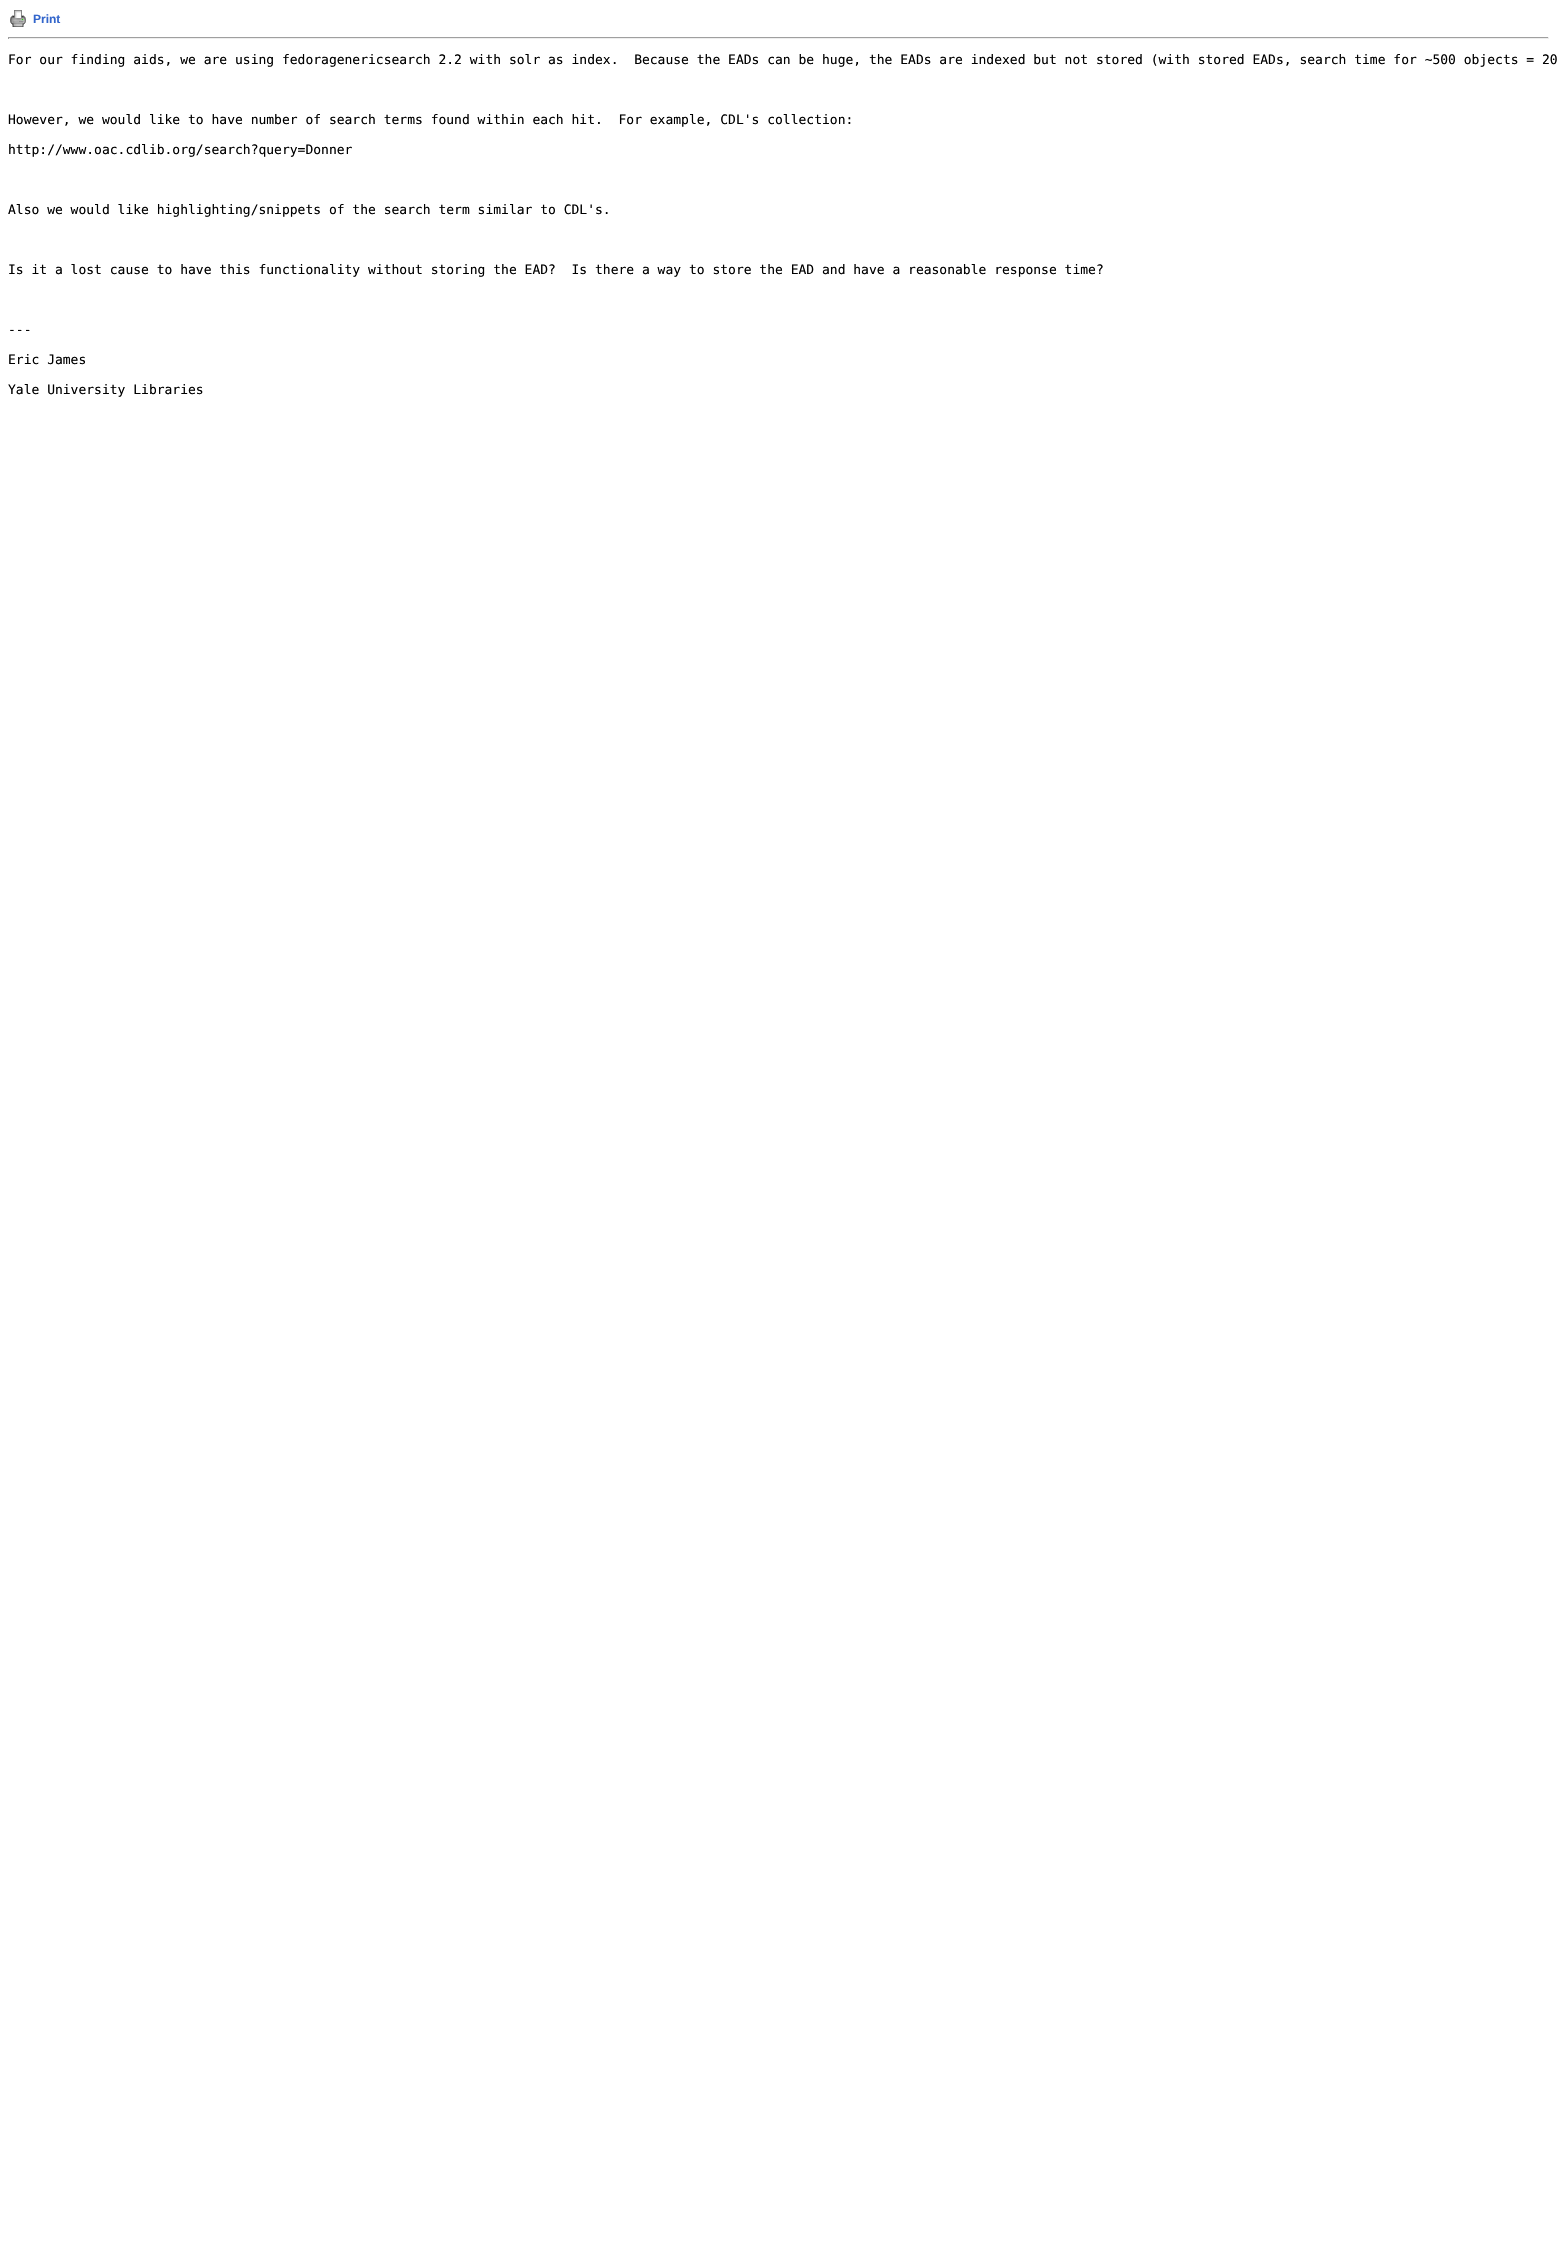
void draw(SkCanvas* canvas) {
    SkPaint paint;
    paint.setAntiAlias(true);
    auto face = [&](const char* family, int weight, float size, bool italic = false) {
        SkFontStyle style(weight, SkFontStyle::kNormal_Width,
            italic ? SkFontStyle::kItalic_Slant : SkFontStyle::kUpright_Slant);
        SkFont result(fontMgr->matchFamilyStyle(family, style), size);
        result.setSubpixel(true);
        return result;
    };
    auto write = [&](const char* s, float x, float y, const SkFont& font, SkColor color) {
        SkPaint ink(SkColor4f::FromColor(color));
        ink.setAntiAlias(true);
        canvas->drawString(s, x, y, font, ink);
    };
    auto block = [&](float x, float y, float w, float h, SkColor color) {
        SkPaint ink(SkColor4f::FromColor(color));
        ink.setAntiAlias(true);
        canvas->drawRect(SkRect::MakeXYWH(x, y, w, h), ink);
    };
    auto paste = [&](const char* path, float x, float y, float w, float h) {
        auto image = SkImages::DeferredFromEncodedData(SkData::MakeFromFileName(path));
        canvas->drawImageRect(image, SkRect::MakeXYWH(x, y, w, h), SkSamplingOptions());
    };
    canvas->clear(SK_ColorWHITE);
    paste("pic1.png", 10, 10, 16, 17);
    auto kFont1 = face("Liberation Sans", 700, 12);
    write("Print", 33, 23, kFont1, SkColorSetRGB(51, 102, 204));
    block(8, 37, 1541, 1, SkColorSetRGB(159, 159, 159));
    block(1548, 37, 1, 2, SkColorSetRGB(238, 238, 238));
    block(8, 38, 1541, 1, SkColorSetRGB(238, 238, 238));
    block(8, 37, 1, 2, SkColorSetRGB(159, 159, 159));
    auto kFont2 = face("DejaVu Sans Mono", 400, 13);
    write("For our finding aids, we are using fedoragenericsearch 2.2 with solr as index.  Because the EADs can be huge, the EADs are indexed but not stored (with stored EADs, search time for ~500 objects = 20", 8, 64, kFont2, SK_ColorBLACK);
    write("However, we would like to have number of search terms found within each hit.  For example, CDL's collection:", 8, 124, kFont2, SK_ColorBLACK);
    write("http://www.oac.cdlib.org/search?query=Donner", 8, 154, kFont2, SK_ColorBLACK);
    write("Also we would like highlighting/snippets of the search term similar to CDL's.", 8, 214, kFont2, SK_ColorBLACK);
    write("Is it a lost cause to have this functionality without storing the EAD?  Is there a way to store the EAD and have a reasonable response time?", 8, 274, kFont2, SK_ColorBLACK);
    write("---", 8, 334, kFont2, SK_ColorBLACK);
    write("Eric James", 8, 364, kFont2, SK_ColorBLACK);
    write("Yale University Libraries", 8, 394, kFont2, SK_ColorBLACK);
}
